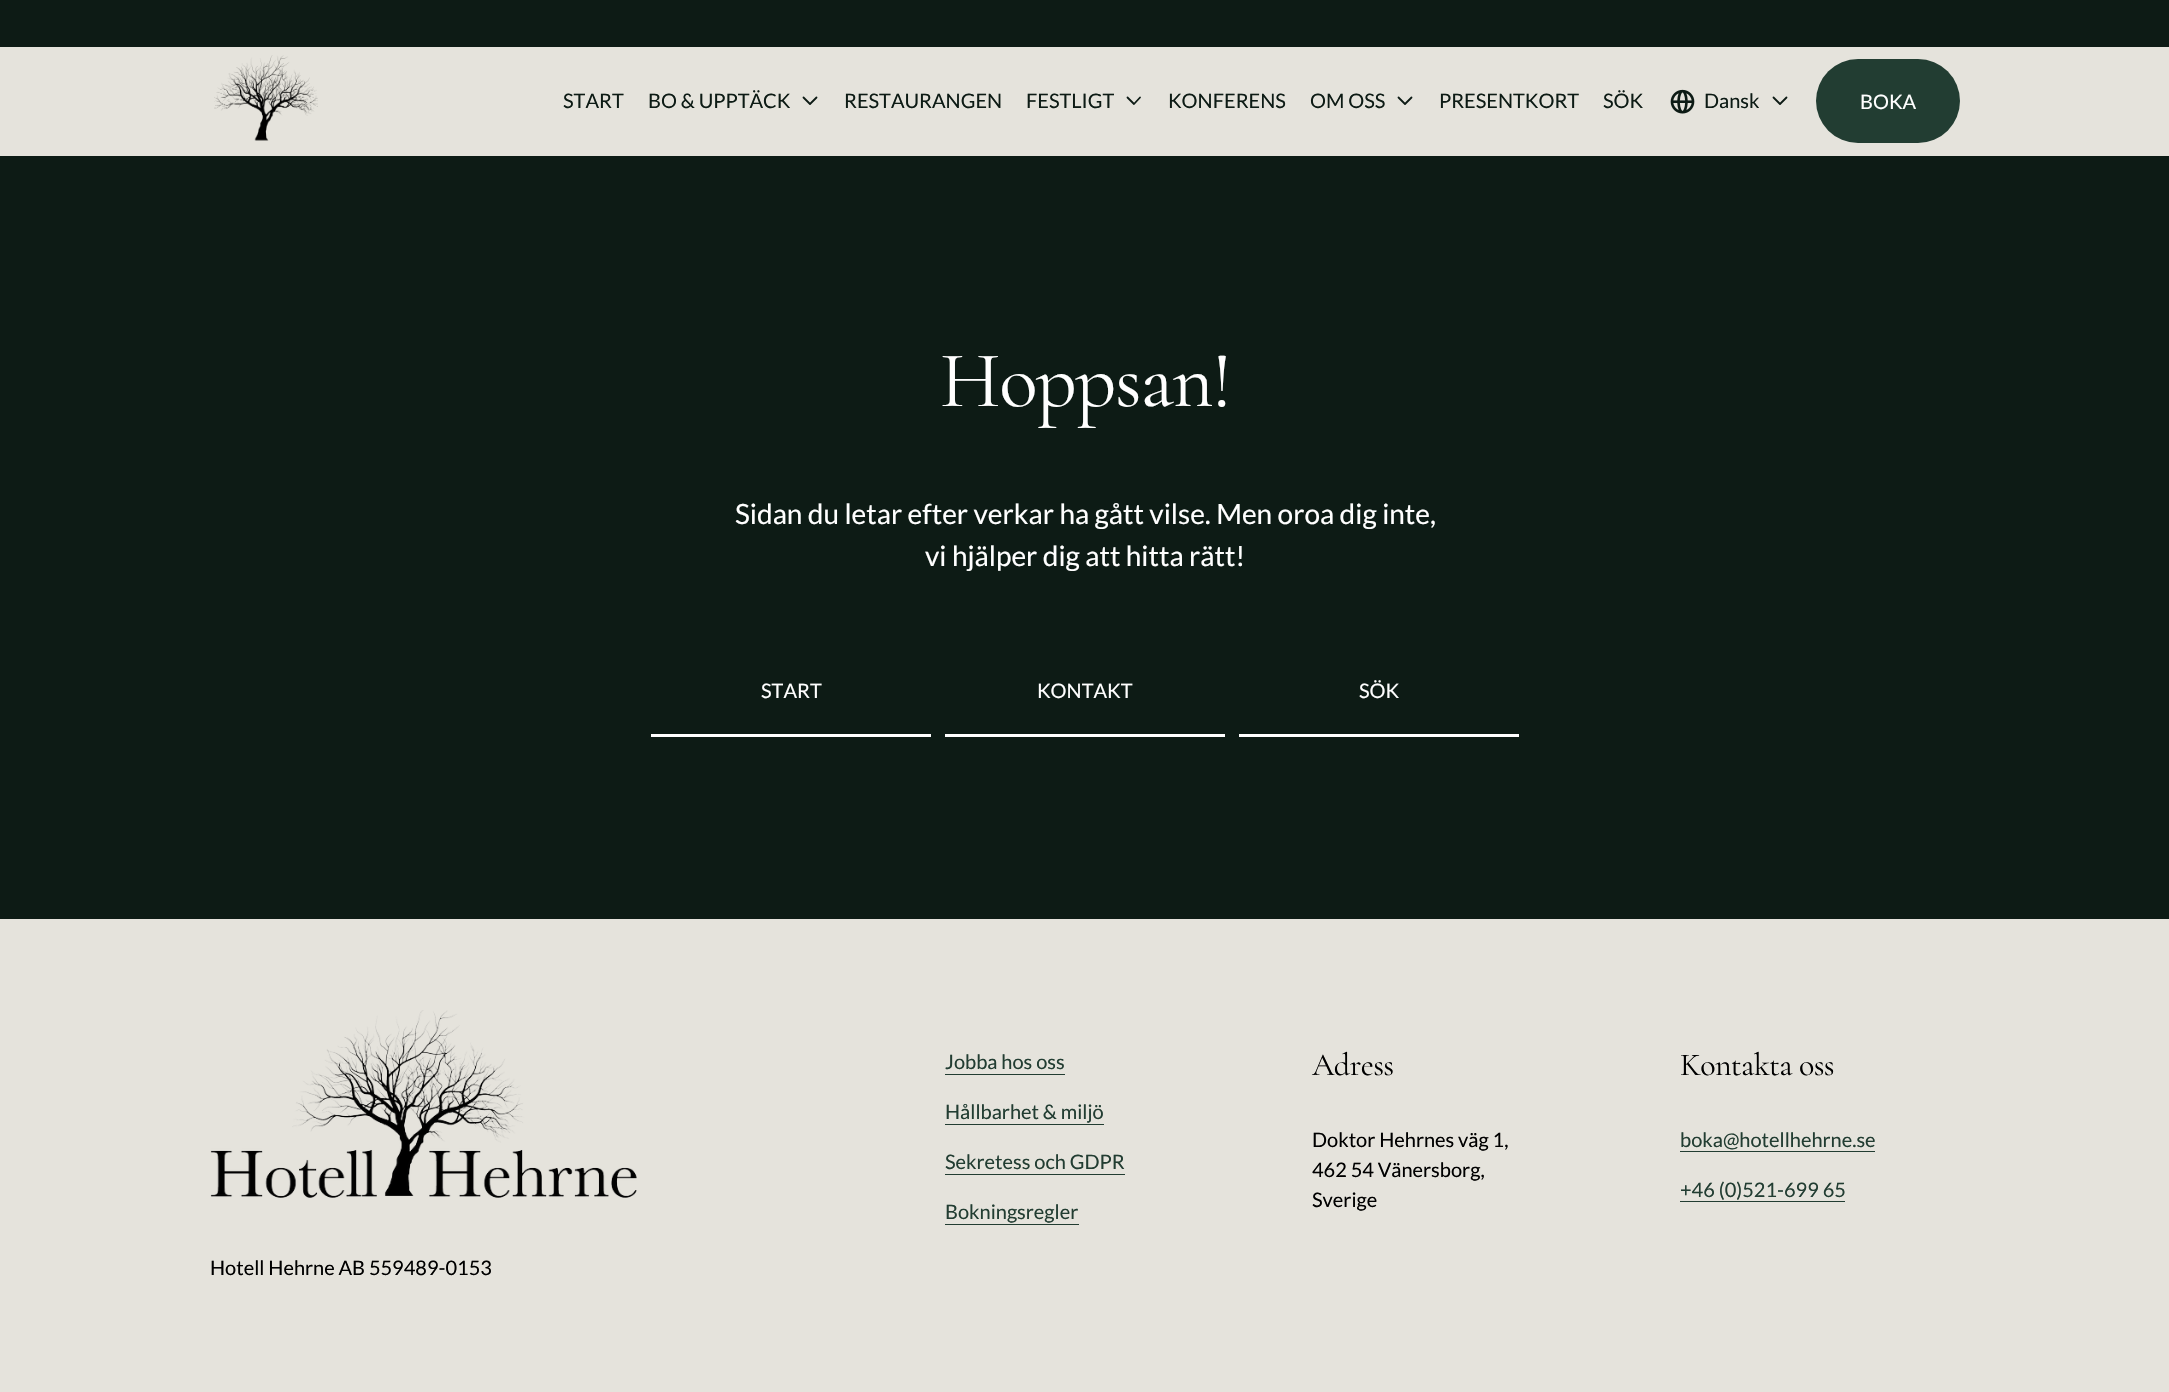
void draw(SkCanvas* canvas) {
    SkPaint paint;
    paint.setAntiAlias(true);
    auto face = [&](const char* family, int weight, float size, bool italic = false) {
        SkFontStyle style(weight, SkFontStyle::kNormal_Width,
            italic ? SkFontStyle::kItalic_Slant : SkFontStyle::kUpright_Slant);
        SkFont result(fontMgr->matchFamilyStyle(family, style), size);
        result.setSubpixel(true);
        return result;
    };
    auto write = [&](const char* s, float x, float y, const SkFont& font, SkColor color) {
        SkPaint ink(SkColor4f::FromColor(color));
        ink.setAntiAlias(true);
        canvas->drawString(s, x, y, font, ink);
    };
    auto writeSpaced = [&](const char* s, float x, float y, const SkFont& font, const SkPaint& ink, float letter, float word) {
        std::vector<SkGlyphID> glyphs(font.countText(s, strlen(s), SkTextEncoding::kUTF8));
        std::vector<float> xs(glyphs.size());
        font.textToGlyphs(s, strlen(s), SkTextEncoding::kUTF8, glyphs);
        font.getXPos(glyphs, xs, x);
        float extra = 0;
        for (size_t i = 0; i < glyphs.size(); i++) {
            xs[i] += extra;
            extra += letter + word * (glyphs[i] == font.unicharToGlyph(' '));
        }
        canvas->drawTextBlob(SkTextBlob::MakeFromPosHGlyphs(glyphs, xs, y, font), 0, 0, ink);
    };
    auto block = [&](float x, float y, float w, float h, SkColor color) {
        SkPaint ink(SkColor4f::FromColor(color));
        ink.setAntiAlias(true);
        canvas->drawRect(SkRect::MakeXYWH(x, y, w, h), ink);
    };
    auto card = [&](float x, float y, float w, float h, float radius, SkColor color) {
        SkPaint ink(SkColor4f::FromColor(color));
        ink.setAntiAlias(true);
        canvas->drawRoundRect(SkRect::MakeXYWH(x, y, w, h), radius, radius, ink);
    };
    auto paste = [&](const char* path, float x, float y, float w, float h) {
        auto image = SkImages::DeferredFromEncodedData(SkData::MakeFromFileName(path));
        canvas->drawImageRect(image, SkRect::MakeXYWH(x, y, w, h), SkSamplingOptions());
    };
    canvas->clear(SkColorSetRGB(229, 227, 220));
    block(0, 0, 2169, 919, SkColorSetRGB(13, 27, 21));
    block(0, 47, 2169, 109, SkColorSetRGB(229, 227, 220));
    paste("pic1.png", 214, 55, 104, 86);
    auto kFont1 = face("Lato", 400, 20);
    write("START", 563, 108, kFont1, SkColorSetRGB(13, 27, 21));
    write("BO & UPPTÄCK", 648, 108, kFont1, SkColorSetRGB(13, 27, 21));
    paint.setStyle(SkPaint::kStroke_Style);
    paint.setStrokeWidth(1.8f);
    paint.setStrokeCap(SkPaint::kRound_Cap);
    paint.setStrokeJoin(SkPaint::kRound_Join);
    paint.setColor(SkColorSetRGB(13, 27, 21));
    canvas->drawPath(SkPathBuilder().moveTo(816.5f, 97.5f).lineTo(810, 104).lineTo(803.5f, 97.5f).detach(), paint);
    write("RESTAURANGEN", 844, 108, kFont1, SkColorSetRGB(13, 27, 21));
    write("FESTLIGT", 1026, 108, kFont1, SkColorSetRGB(13, 27, 21));
    canvas->drawPath(SkPathBuilder().moveTo(1140, 97.5f).lineTo(1134, 104).lineTo(1127.5f, 97.5f).detach(), paint);
    write("KONFERENS", 1168, 108, kFont1, SkColorSetRGB(13, 27, 21));
    write("OM OSS", 1310, 108, kFont1, SkColorSetRGB(13, 27, 21));
    canvas->drawPath(SkPathBuilder().moveTo(1411.5f, 97.5f).lineTo(1405, 104).lineTo(1398.5f, 97.5f).detach(), paint);
    write("PRESENTKORT", 1439, 108, kFont1, SkColorSetRGB(13, 27, 21));
    write("SÖK", 1603, 108, kFont1, SkColorSetRGB(13, 27, 21));
    paste("pic2.png", 1670, 89, 25, 25);
    write("Dansk", 1704, 108, kFont1, SkColorSetRGB(13, 27, 21));
    canvas->drawPath(SkPathBuilder().moveTo(1786.5f, 97.5f).lineTo(1780, 104).lineTo(1773.5f, 97.5f).detach(), paint);
    card(1816, 59, 144, 84, 42, SkColorSetRGB(34, 61, 50));
    write("BOKA", 1860, 109, kFont1, SK_ColorWHITE);
    auto kFont2 = face("Cormorant Garamond", 400, 80);
    paint.setStyle(SkPaint::kFill_Style);
    paint.setColor(SK_ColorWHITE);
    writeSpaced("Hoppsan!", 940, 406, kFont2, paint, -1.5f, 0);
    auto kFont3 = face("Lato", 400, 28);
    write("Sidan du letar efter verkar ha gått vilse. Men oroa dig inte,", 735, 524, kFont3, SK_ColorWHITE);
    write("vi hjälper dig att hitta rätt!", 925, 566, kFont3, SK_ColorWHITE);
    block(651, 734, 280, 3, SK_ColorWHITE);
    write("START", 761, 698, kFont1, SK_ColorWHITE);
    block(945, 734, 280, 3, SK_ColorWHITE);
    write("KONTAKT", 1037, 698, kFont1, SK_ColorWHITE);
    block(1239, 734, 280, 3, SK_ColorWHITE);
    write("SÖK", 1359, 698, kFont1, SK_ColorWHITE);
    paste("pic3.png", 210, 1010, 427, 188);
    write("Jobba hos oss", 945, 1069, kFont1, SkColorSetRGB(34, 61, 50));
    block(945, 1074, 120, 1, SkColorSetRGB(34, 61, 50));
    write("Hållbarhet & miljö", 945, 1119, kFont1, SkColorSetRGB(34, 61, 50));
    block(945, 1124, 159, 1, SkColorSetRGB(34, 61, 50));
    write("Sekretess och GDPR", 945, 1169, kFont1, SkColorSetRGB(34, 61, 50));
    block(945, 1174, 180, 1, SkColorSetRGB(34, 61, 50));
    write("Bokningsregler", 945, 1219, kFont1, SkColorSetRGB(34, 61, 50));
    block(945, 1224, 134, 1, SkColorSetRGB(34, 61, 50));
    auto kFont4 = face("Cormorant Garamond", 400, 32);
    paint.setColor(SK_ColorBLACK);
    writeSpaced("Adress", 1312, 1075, kFont4, paint, -0.6f, 0);
    write("Doktor Hehrnes väg 1,", 1312, 1147, kFont1, SK_ColorBLACK);
    write("462 54 Vänersborg,", 1312, 1177, kFont1, SK_ColorBLACK);
    write("Sverige", 1312, 1207, kFont1, SK_ColorBLACK);
    writeSpaced("Kontakta oss", 1680, 1075, kFont4, paint, -0.6f, 0);
    write("boka@hotellhehrne.se", 1680, 1147, kFont1, SkColorSetRGB(34, 61, 50));
    block(1680, 1151, 195, 1, SkColorSetRGB(34, 61, 50));
    write("+46 (0)521-699 65", 1680, 1197, kFont1, SkColorSetRGB(34, 61, 50));
    block(1680, 1201, 165, 1, SkColorSetRGB(34, 61, 50));
    write("Hotell Hehrne AB 559489-0153", 210, 1275, kFont1, SK_ColorBLACK);
}
